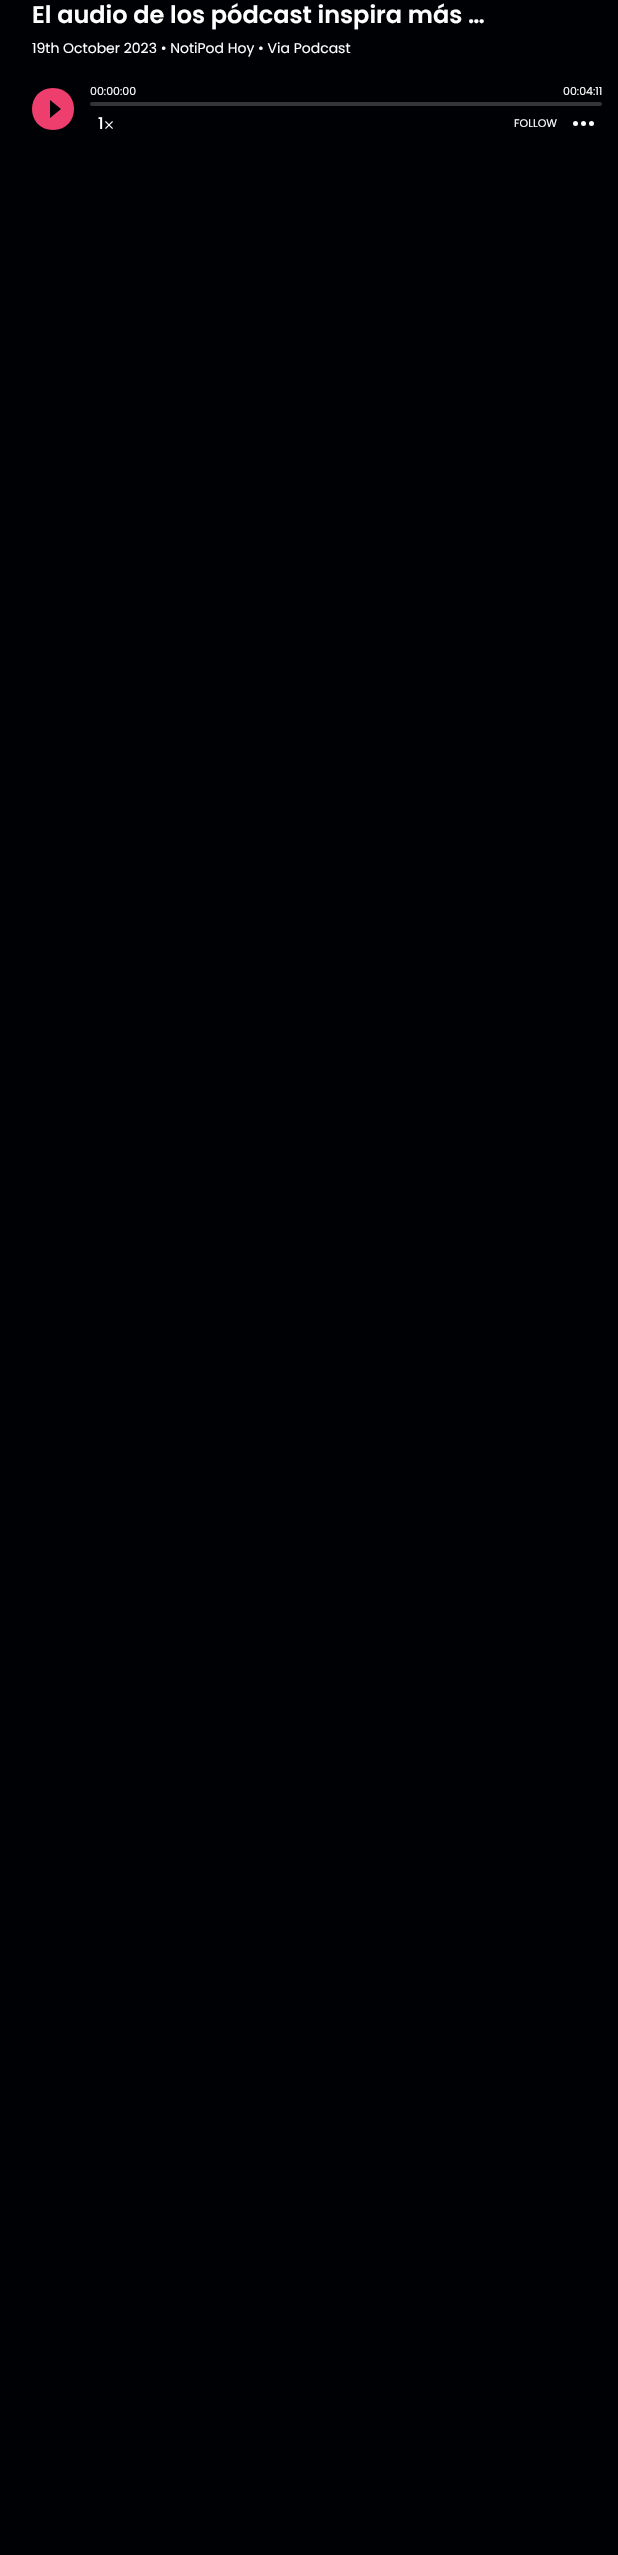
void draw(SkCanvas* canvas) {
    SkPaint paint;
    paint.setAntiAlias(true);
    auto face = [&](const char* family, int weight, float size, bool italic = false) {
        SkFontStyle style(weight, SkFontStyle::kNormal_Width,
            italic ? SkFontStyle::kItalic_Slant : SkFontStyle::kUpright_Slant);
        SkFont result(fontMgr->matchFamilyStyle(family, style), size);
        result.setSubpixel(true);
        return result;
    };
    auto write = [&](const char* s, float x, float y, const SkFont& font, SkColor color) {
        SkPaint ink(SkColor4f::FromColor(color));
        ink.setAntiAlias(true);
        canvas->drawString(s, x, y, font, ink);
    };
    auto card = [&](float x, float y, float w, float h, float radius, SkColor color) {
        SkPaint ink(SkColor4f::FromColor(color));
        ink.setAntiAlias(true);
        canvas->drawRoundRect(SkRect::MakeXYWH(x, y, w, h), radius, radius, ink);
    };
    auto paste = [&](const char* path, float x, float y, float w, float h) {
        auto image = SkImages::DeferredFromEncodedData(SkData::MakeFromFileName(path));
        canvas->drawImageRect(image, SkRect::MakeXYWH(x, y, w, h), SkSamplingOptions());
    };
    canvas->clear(SkColorSetRGB(0, 1, 5));
    auto kFont1 = face("Poppins", 600, 24);
    write("El audio de los pódcast inspira más …", 32, 23, kFont1, SK_ColorWHITE);
    auto kFont2 = face("Poppins", 400, 14);
    write("19th October 2023 • NotiPod Hoy • Via Podcast", 32, 53, kFont2, SK_ColorWHITE);
    paint.setColor(SkColorSetRGB(238, 62, 109));
    canvas->drawPath(SkPathBuilder(SkPathFillType::kEvenOdd).moveTo(53, 130).cubicTo(81, 130, 81, 88, 53, 88).cubicTo(25, 88, 25, 130, 53, 130).close().moveTo(50, 118).lineTo(61, 109).lineTo(50, 100).close().detach(), paint);
    auto kFont3 = face("Poppins", 400, 11);
    write("00:00:00", 90, 95, kFont3, SK_ColorWHITE);
    write("00:04:11", 563, 95, kFont3, SK_ColorWHITE);
    card(90, 102, 512, 4, 2, SkColorSetRGB(51, 52, 55));
    auto kFont4 = face("Poppins", 500, 16);
    write("1", 98, 129, kFont4, SK_ColorWHITE);
    paste("pic1.png", 105, 121, 8, 8);
    write("FOLLOW", 514, 127, kFont3, SK_ColorWHITE);
    paint.setColor(SK_ColorWHITE);
    canvas->drawCircle(591.5f, 123.5f, 2.5f, paint);
    canvas->drawCircle(583.5f, 123.5f, 2.5f, paint);
    canvas->drawCircle(575.5f, 123.5f, 2.5f, paint);
}
